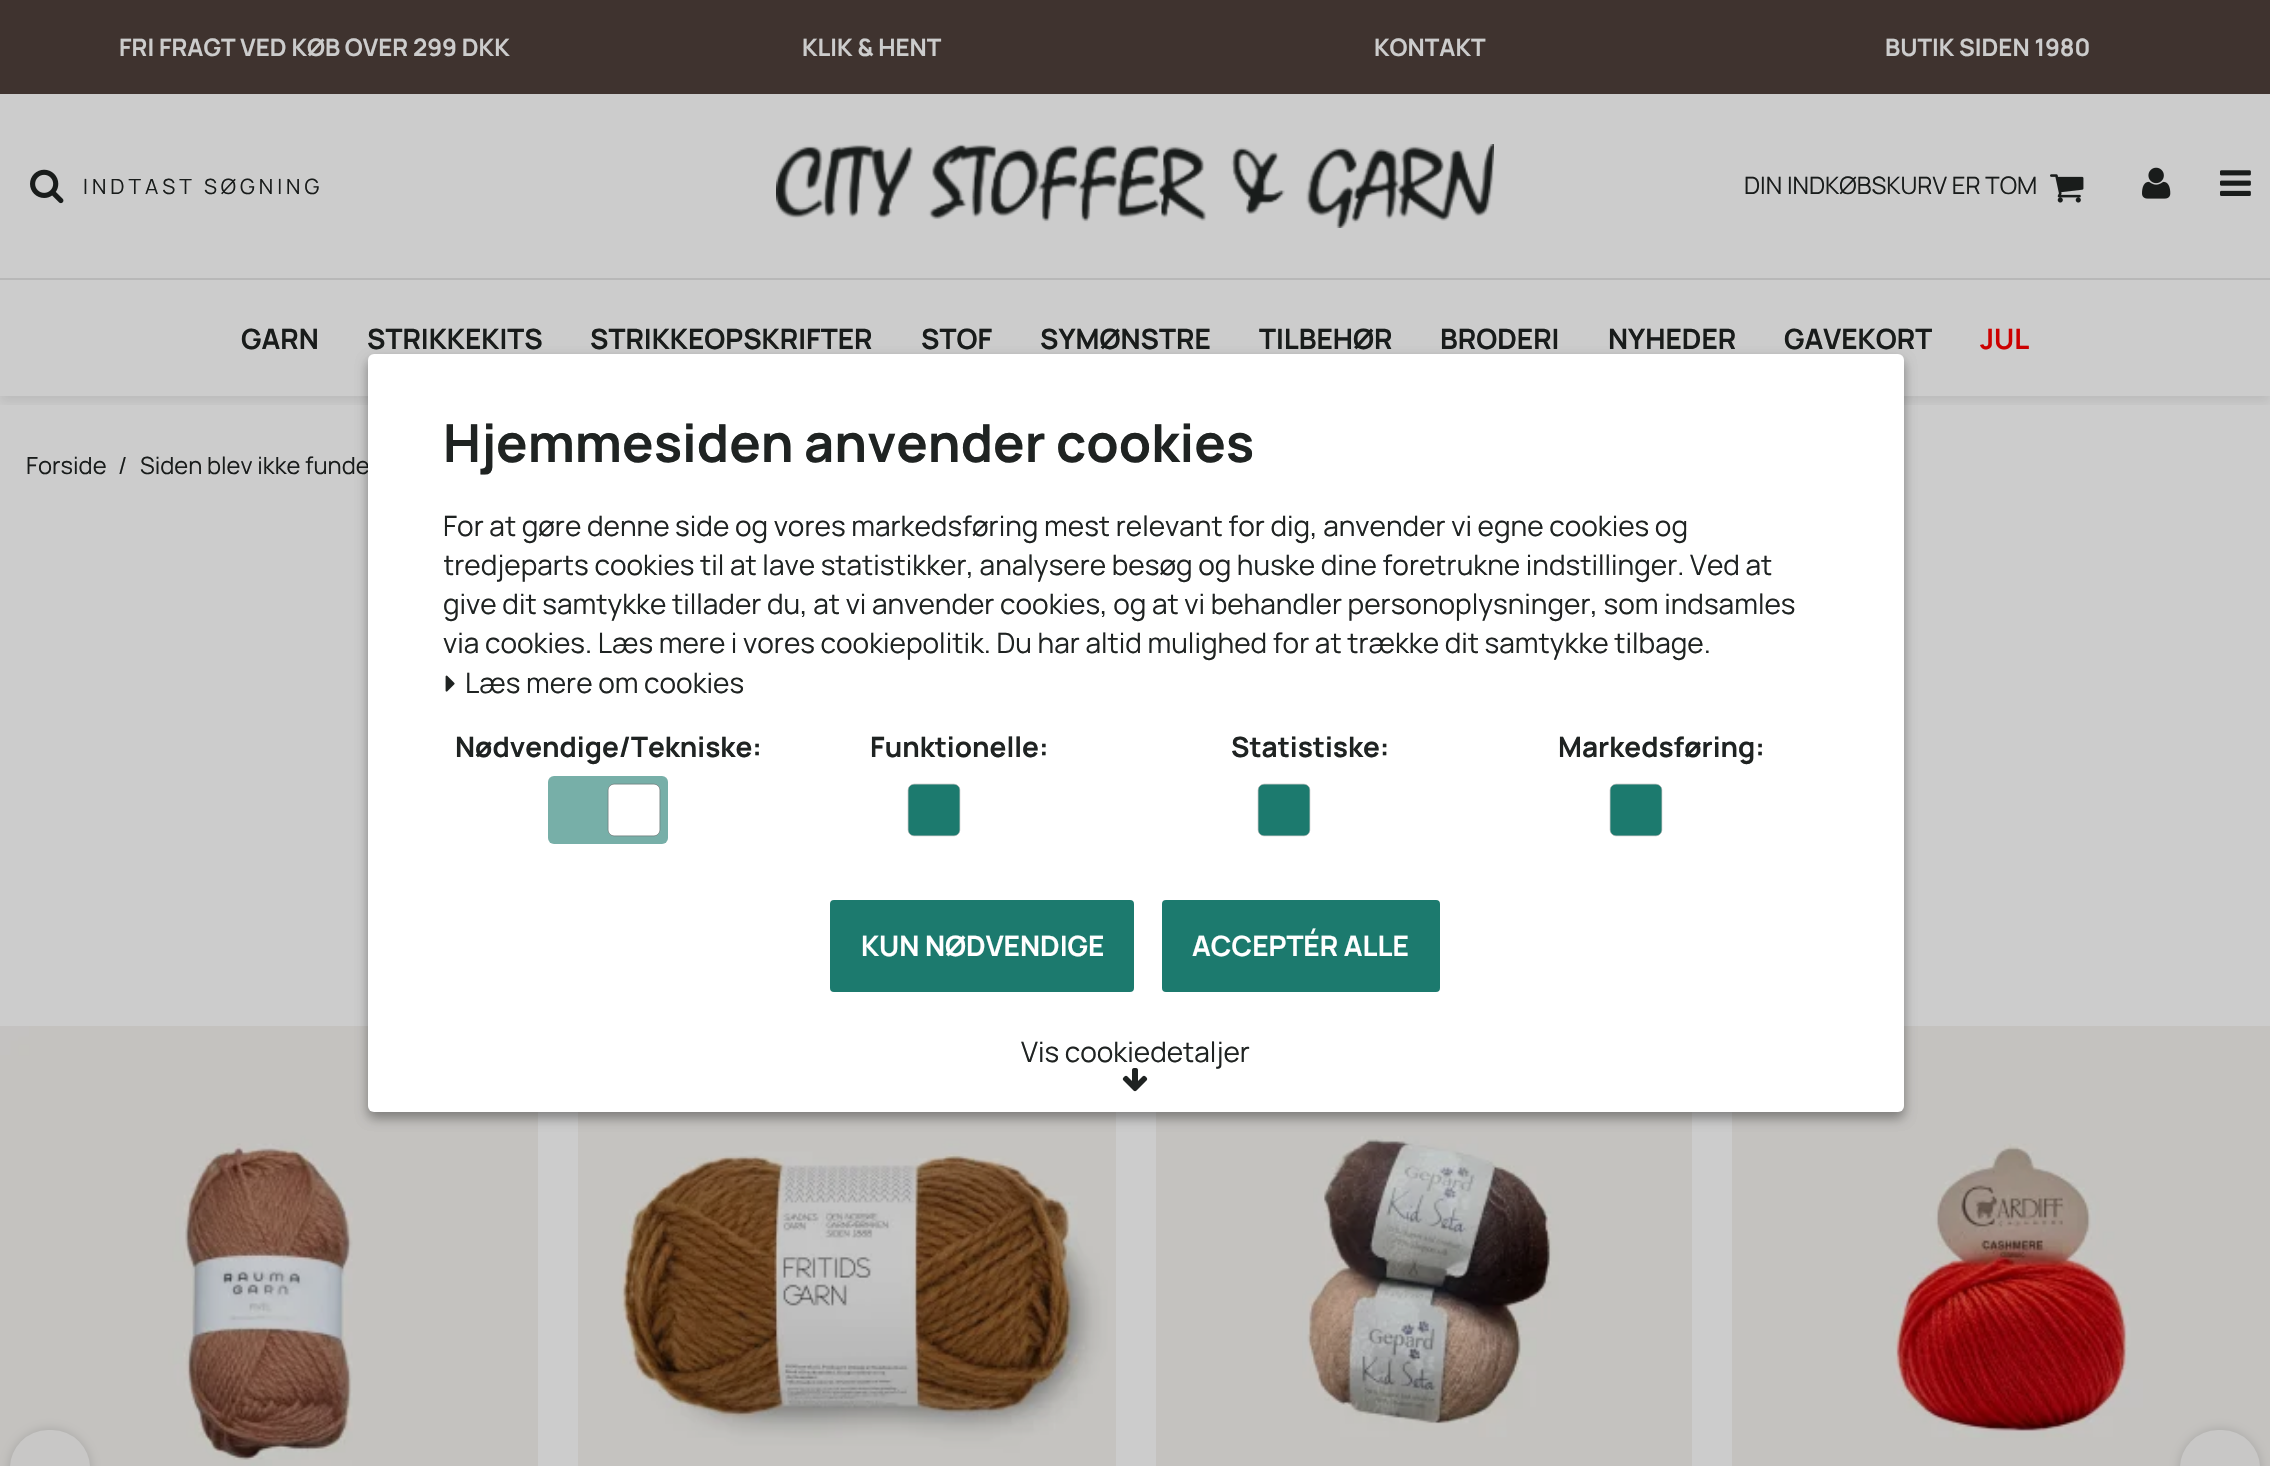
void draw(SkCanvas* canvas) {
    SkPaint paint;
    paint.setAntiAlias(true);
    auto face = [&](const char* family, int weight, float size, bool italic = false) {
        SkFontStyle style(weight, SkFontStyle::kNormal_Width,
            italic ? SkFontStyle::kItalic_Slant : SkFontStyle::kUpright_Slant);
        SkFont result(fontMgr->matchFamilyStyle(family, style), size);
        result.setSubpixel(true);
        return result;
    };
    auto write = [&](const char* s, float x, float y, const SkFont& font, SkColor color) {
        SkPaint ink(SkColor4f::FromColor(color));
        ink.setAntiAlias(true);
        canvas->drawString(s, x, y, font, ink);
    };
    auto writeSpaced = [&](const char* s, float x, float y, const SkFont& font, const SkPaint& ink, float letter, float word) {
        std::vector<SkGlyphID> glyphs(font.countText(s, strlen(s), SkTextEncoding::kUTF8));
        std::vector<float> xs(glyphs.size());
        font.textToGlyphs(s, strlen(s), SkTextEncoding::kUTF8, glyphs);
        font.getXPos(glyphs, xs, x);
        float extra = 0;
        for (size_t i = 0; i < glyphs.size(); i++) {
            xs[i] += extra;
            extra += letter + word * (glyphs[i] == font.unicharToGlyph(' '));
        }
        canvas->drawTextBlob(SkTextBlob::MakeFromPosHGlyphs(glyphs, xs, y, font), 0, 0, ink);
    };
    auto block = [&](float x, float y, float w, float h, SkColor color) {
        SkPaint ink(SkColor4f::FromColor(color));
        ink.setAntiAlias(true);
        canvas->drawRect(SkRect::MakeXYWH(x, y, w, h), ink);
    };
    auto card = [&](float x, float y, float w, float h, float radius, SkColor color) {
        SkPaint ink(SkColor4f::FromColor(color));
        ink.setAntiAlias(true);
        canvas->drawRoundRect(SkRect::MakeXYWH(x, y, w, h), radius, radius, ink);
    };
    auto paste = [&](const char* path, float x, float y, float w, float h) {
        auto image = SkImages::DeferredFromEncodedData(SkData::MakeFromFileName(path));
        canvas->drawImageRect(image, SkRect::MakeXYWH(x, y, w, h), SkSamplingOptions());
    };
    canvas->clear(SkColorSetRGB(204, 204, 204));
    block(0, 0, 2270, 94, SkColorSetRGB(63, 51, 47));
    auto kFont1 = face("Manrope", 200, 24);
    write("FRI FRAGT VED KØB OVER 299 DKK", 119, 56, kFont1, SkColorSetRGB(204, 204, 204));
    write("KLIK & HENT", 802, 56, kFont1, SkColorSetRGB(204, 204, 204));
    write("KONTAKT", 1374, 56, kFont1, SkColorSetRGB(204, 204, 204));
    write("BUTIK SIDEN 1980", 1885, 56, kFont1, SkColorSetRGB(204, 204, 204));
    paste("pic1.png", 30, 169, 34, 35);
    auto kFont2 = face("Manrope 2", 200, 21);
    paint.setColor(SkColorSetRGB(25, 28, 27));
    writeSpaced("INDTAST SØGNING", 83, 194, kFont2, paint, 4, 0);
    paste("pic2.png", 776, 144, 718, 84);
    auto kFont3 = face("Manrope 2", 200, 24);
    write("DIN INDKØBSKURV ER TOM", 1744, 194, kFont3, SkColorSetRGB(25, 28, 27));
    paste("pic3.png", 2050, 174, 34, 29);
    paste("pic4.png", 2142, 167, 29, 32);
    paste("pic5.png", 2220, 170, 31, 26);
    canvas->save();
    canvas->clipRect(SkRect::MakeXYWH(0, 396, 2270, 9));
    paint.setColor(SkColorSetARGB(20, 0, 0, 0));
    paint.setMaskFilter(SkMaskFilter::MakeBlur(kNormal_SkBlurStyle, 5));
    canvas->drawRect(SkRect::MakeXYWH(0, 284, 2270, 118), paint);
    paint.setMaskFilter(nullptr);
    canvas->restore();
    block(0, 278, 2270, 2, SkColorSetRGB(184, 184, 184));
    auto kFont4 = face("Manrope", 200, 28);
    write("GARN", 241, 349, kFont4, SkColorSetRGB(25, 28, 27));
    write("STRIKKEKITS", 367, 349, kFont4, SkColorSetRGB(25, 28, 27));
    write("STRIKKEOPSKRIFTER", 590, 349, kFont4, SkColorSetRGB(25, 28, 27));
    write("STOF", 921, 349, kFont4, SkColorSetRGB(25, 28, 27));
    write("SYMØNSTRE", 1040, 349, kFont4, SkColorSetRGB(25, 28, 27));
    write("TILBEHØR", 1259, 349, kFont4, SkColorSetRGB(25, 28, 27));
    write("BRODERI", 1440, 349, kFont4, SkColorSetRGB(25, 28, 27));
    write("NYHEDER", 1608, 349, kFont4, SkColorSetRGB(25, 28, 27));
    write("GAVEKORT", 1784, 349, kFont4, SkColorSetRGB(25, 28, 27));
    write("JUL", 1980, 349, kFont4, SkColorSetRGB(204, 0, 0));
    auto kFont5 = face("Manrope 2", 200, 23.75f);
    write("Forside", 26, 474, kFont5, SkColorSetRGB(25, 28, 27));
    write("/", 118, 474, kFont5, SkColorSetRGB(25, 28, 27));
    write("Siden blev ikke funde", 140, 474, kFont5, SkColorSetRGB(25, 28, 27));
    paste("pic8.png", 0, 1026, 538, 440);
    paste("pic9.png", 578, 1112, 538, 354);
    paste("pic10.png", 1156, 1112, 536, 354);
    paste("pic11.png", 1732, 1026, 538, 440);
    paint.setColor(SkColorSetARGB(59, 0, 0, 0));
    paint.setMaskFilter(SkMaskFilter::MakeBlur(kNormal_SkBlurStyle, 6));
    canvas->drawRoundRect(SkRect::MakeXYWH(368, 360, 1536, 758), 6, 6, paint);
    paint.setMaskFilter(nullptr);
    paint.setColor(SkColorSetARGB(41, 0, 0, 0));
    paint.setMaskFilter(SkMaskFilter::MakeBlur(kNormal_SkBlurStyle, 6));
    canvas->drawRoundRect(SkRect::MakeXYWH(368, 360, 1536, 758), 6, 6, paint);
    paint.setMaskFilter(nullptr);
    card(368, 354, 1536, 758, 6, SK_ColorWHITE);
    auto kFont6 = face("Manrope", 200, 52.5f);
    write("Hjemmesiden anvender cookies", 443, 462, kFont6, SkColorSetRGB(31, 35, 34));
    auto kFont7 = face("Manrope 2", 200, 28);
    write("For at gøre denne side og vores markedsføring mest relevant for dig, anvender vi egne cookies og", 443, 536, kFont7, SkColorSetRGB(31, 35, 34));
    canvas->save();
    canvas->clipRect(SkRect::MakeXYWH(444, 506, 1384, 156));
    write("tredjeparts cookies til at lave statistikker, analysere besøg og huske dine foretrukne indstillinger. Ved at", 443, 575, kFont7, SkColorSetRGB(31, 35, 34));
    canvas->restore();
    write("give dit samtykke tillader du, at vi anvender cookies, og at vi behandler personoplysninger, som indsamles", 443, 614, kFont7, SkColorSetRGB(31, 35, 34));
    write("via cookies. Læs mere i vores cookiepolitik. Du har altid mulighed for at trække dit samtykke tilbage.", 443, 653, kFont7, SkColorSetRGB(31, 35, 34));
    paste("pic6.png", 445, 675, 10, 17);
    write("Læs mere om cookies", 465, 693, kFont7, SkColorSetRGB(31, 35, 34));
    write("Nødvendige/Tekniske:", 455, 757, kFont4, SkColorSetRGB(31, 35, 34));
    card(548, 776, 120, 68, 6, SkColorSetRGB(119, 175, 168));
    paint.setStyle(SkPaint::kStroke_Style);
    paint.setStrokeWidth(0.4f);
    paint.setColor(SkColorSetRGB(102, 102, 102));
    canvas->drawRoundRect(SkRect::MakeXYWH(608.2f, 784.2f, 51.6f, 51.6f), 5.8f, 5.8f, paint);
    paint.setStyle(SkPaint::kFill_Style);
    paint.setColor(SK_ColorWHITE);
    canvas->drawRoundRect(SkRect::MakeXYWH(608.2f, 784.2f, 51.6f, 51.6f), 5.8f, 5.8f, paint);
    paint.setStyle(SkPaint::kStroke_Style);
    paint.setColor(SkColorSetRGB(102, 102, 102));
    canvas->drawRoundRect(SkRect::MakeXYWH(608.2f, 784.2f, 51.6f, 51.6f), 5.8f, 5.8f, paint);
    write("Funktionelle:", 870, 757, kFont4, SkColorSetRGB(31, 35, 34));
    paint.setColor(SkColorSetRGB(179, 179, 179));
    canvas->drawRoundRect(SkRect::MakeXYWH(908.2f, 784.2f, 51.6f, 51.6f), 5.8f, 5.8f, paint);
    paint.setStyle(SkPaint::kFill_Style);
    paint.setColor(SkColorSetRGB(28, 122, 110));
    canvas->drawRoundRect(SkRect::MakeXYWH(908.2f, 784.2f, 51.6f, 51.6f), 5.8f, 5.8f, paint);
    paint.setStyle(SkPaint::kStroke_Style);
    paint.setColor(SkColorSetRGB(179, 179, 179));
    canvas->drawRoundRect(SkRect::MakeXYWH(908.2f, 784.2f, 51.6f, 51.6f), 5.8f, 5.8f, paint);
    write("Statistiske:", 1231, 757, kFont4, SkColorSetRGB(31, 35, 34));
    canvas->drawRoundRect(SkRect::MakeXYWH(1258.2f, 784.2f, 51.6f, 51.6f), 5.8f, 5.8f, paint);
    paint.setStyle(SkPaint::kFill_Style);
    paint.setColor(SkColorSetRGB(28, 122, 110));
    canvas->drawRoundRect(SkRect::MakeXYWH(1258.2f, 784.2f, 51.6f, 51.6f), 5.8f, 5.8f, paint);
    paint.setStyle(SkPaint::kStroke_Style);
    paint.setColor(SkColorSetRGB(179, 179, 179));
    canvas->drawRoundRect(SkRect::MakeXYWH(1258.2f, 784.2f, 51.6f, 51.6f), 5.8f, 5.8f, paint);
    write("Markedsføring:", 1558, 757, kFont4, SkColorSetRGB(31, 35, 34));
    canvas->drawRoundRect(SkRect::MakeXYWH(1610.2f, 784.2f, 51.6f, 51.6f), 5.8f, 5.8f, paint);
    paint.setStyle(SkPaint::kFill_Style);
    paint.setColor(SkColorSetRGB(28, 122, 110));
    canvas->drawRoundRect(SkRect::MakeXYWH(1610.2f, 784.2f, 51.6f, 51.6f), 5.8f, 5.8f, paint);
    paint.setStyle(SkPaint::kStroke_Style);
    paint.setColor(SkColorSetRGB(179, 179, 179));
    canvas->drawRoundRect(SkRect::MakeXYWH(1610.2f, 784.2f, 51.6f, 51.6f), 5.8f, 5.8f, paint);
    paint.setStyle(SkPaint::kFill_Style);
    paint.setColor(SkColorSetRGB(28, 122, 110));
    canvas->drawRoundRect(SkRect::MakeXYWH(831, 901, 302, 90), 3, 3, paint);
    paint.setStyle(SkPaint::kStroke_Style);
    paint.setStrokeWidth(2);
    canvas->drawRoundRect(SkRect::MakeXYWH(831, 901, 302, 90), 3, 3, paint);
    write("KUN NØDVENDIGE", 861, 956, kFont4, SK_ColorWHITE);
    paint.setStyle(SkPaint::kFill_Style);
    canvas->drawRoundRect(SkRect::MakeXYWH(1163, 901, 276, 90), 3, 3, paint);
    paint.setStyle(SkPaint::kStroke_Style);
    canvas->drawRoundRect(SkRect::MakeXYWH(1163, 901, 276, 90), 3, 3, paint);
    write("ACCEPTÉR ALLE", 1192, 956, kFont4, SK_ColorWHITE);
    write("Vis cookiedetaljer", 1021, 1062, kFont7, SkColorSetRGB(31, 35, 34));
    paste("pic7.png", 1122, 1068, 26, 24);
    paint.setStyle(SkPaint::kFill_Style);
    paint.setColor(SkColorSetRGB(173, 172, 170));
    paint.setMaskFilter(SkMaskFilter::MakeBlur(kNormal_SkBlurStyle, 5));
    canvas->drawRoundRect(SkRect::MakeXYWH(8, 1428, 84, 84), 42, 42, paint);
    paint.setMaskFilter(nullptr);
    card(10, 1430, 80, 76, 40, SkColorSetRGB(200, 199, 198));
    paint.setMaskFilter(SkMaskFilter::MakeBlur(kNormal_SkBlurStyle, 5));
    canvas->drawRoundRect(SkRect::MakeXYWH(2178, 1428, 84, 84), 42, 42, paint);
    paint.setMaskFilter(nullptr);
    card(2180, 1430, 80, 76, 40, SkColorSetRGB(200, 199, 198));
}
